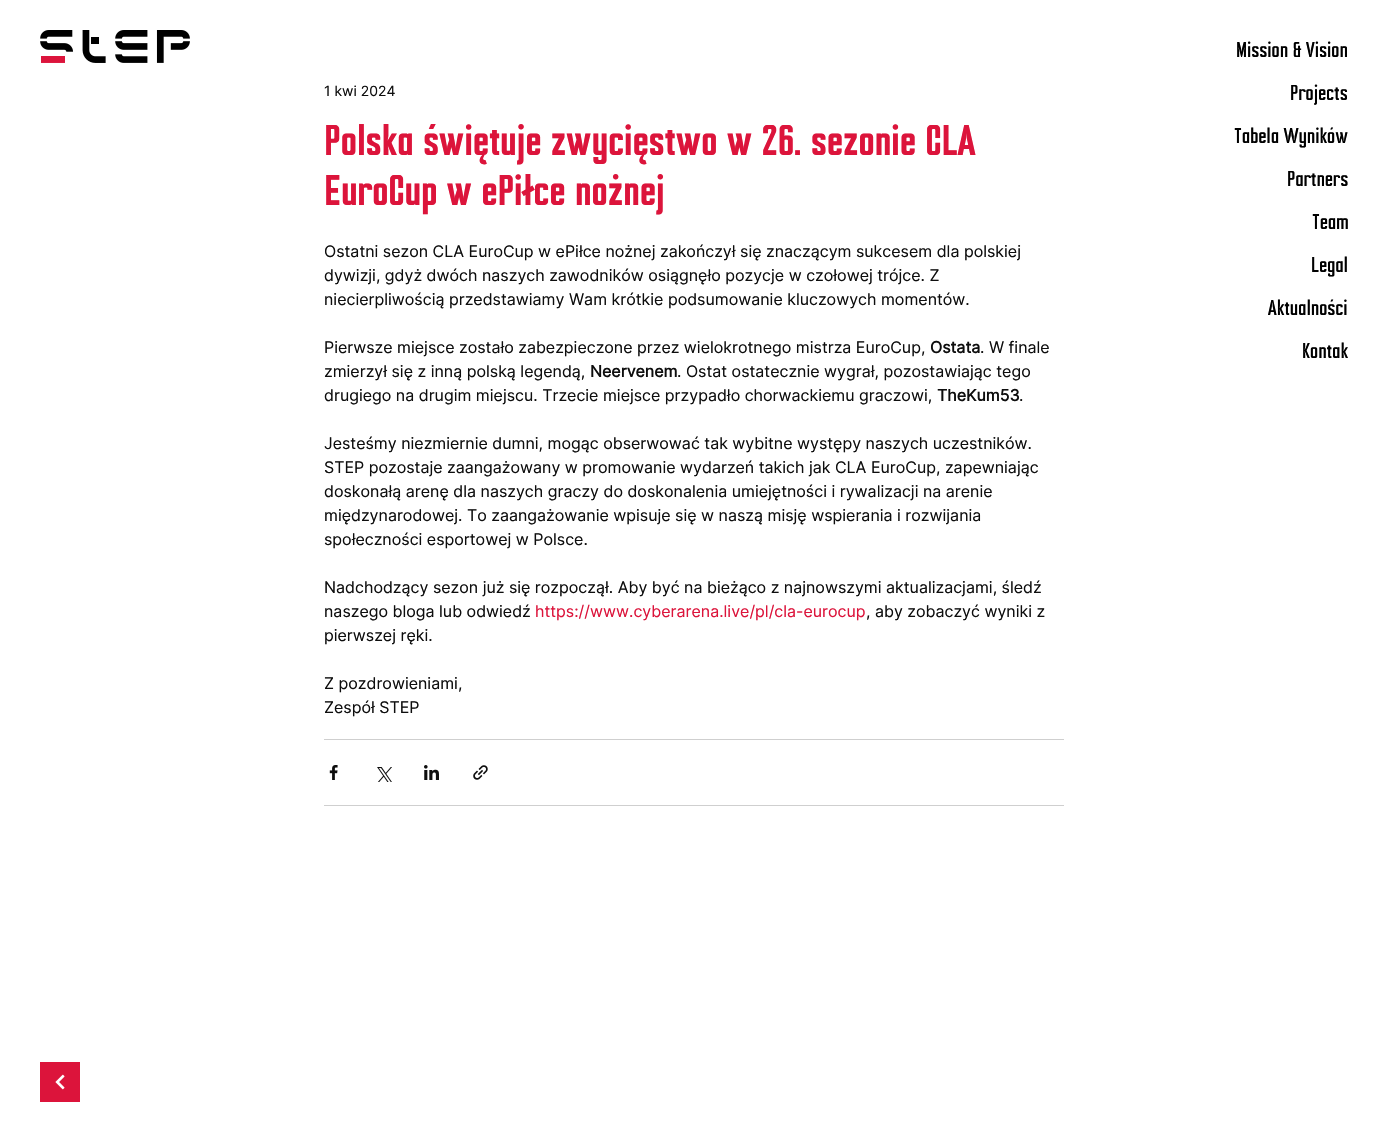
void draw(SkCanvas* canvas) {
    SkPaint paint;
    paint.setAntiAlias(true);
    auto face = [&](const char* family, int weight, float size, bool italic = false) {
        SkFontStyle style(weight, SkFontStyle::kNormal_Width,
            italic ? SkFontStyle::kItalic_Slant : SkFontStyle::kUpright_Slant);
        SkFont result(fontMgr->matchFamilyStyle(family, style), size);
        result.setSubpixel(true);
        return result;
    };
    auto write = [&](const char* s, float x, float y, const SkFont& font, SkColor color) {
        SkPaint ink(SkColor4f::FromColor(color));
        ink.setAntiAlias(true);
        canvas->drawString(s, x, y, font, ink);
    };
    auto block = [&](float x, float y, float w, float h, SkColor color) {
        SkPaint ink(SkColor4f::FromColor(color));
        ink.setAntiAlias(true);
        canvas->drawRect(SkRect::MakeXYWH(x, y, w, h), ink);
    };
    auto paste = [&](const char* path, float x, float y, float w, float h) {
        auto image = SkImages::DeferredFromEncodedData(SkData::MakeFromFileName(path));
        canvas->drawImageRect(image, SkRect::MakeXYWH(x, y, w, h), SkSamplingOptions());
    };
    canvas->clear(SK_ColorWHITE);
    paste("pic1.png", 40, 30, 150, 33);
    auto kFont1 = face("Inter", 400, 14);
    write("1 kwi 2024", 324, 96, kFont1, SkColorSetRGB(14, 14, 14));
    auto kFont2 = face("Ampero", 700, 40);
    write("Polska świętuje zwycięstwo w 26. sezonie CLA", 324, 155, kFont2, SkColorSetRGB(220, 20, 59));
    write("EuroCup w ePiłce nożnej", 324, 205, kFont2, SkColorSetRGB(220, 20, 59));
    auto kFont3 = face("Inter", 400, 16);
    write("Ostatni sezon CLA EuroCup w ePiłce nożnej zakończył się znaczącym sukcesem dla polskiej", 324, 257, kFont3, SkColorSetRGB(14, 14, 14));
    write("dywizji, gdyż dwóch naszych zawodników osiągnęło pozycje w czołowej trójce. Z", 324, 281, kFont3, SkColorSetRGB(14, 14, 14));
    write("niecierpliwością przedstawiamy Wam krótkie podsumowanie kluczowych momentów.", 324, 305, kFont3, SkColorSetRGB(14, 14, 14));
    write("Pierwsze miejsce zostało zabezpieczone przez wielokrotnego mistrza EuroCup,", 324, 353, kFont3, SkColorSetRGB(14, 14, 14));
    auto kFont4 = face("Inter", 700, 16);
    write("Ostata", 930, 353, kFont4, SkColorSetRGB(14, 14, 14));
    write(". W finale", 980, 353, kFont3, SkColorSetRGB(14, 14, 14));
    write("zmierzył się z inną polską legendą,", 324, 377, kFont3, SkColorSetRGB(14, 14, 14));
    write("Neervenem", 590, 377, kFont4, SkColorSetRGB(14, 14, 14));
    write(". Ostat ostatecznie wygrał, pozostawiając tego", 677, 377, kFont3, SkColorSetRGB(14, 14, 14));
    write("drugiego na drugim miejscu. Trzecie miejsce przypadło chorwackiemu graczowi,", 324, 401, kFont3, SkColorSetRGB(14, 14, 14));
    write("TheKum53", 937, 401, kFont4, SkColorSetRGB(14, 14, 14));
    write(".", 1019, 401, kFont3, SkColorSetRGB(14, 14, 14));
    write("Jesteśmy niezmiernie dumni, mogąc obserwować tak wybitne występy naszych uczestników.", 324, 449, kFont3, SkColorSetRGB(14, 14, 14));
    write("STEP pozostaje zaangażowany w promowanie wydarzeń takich jak CLA EuroCup, zapewniając", 324, 473, kFont3, SkColorSetRGB(14, 14, 14));
    write("doskonałą arenę dla naszych graczy do doskonalenia umiejętności i rywalizacji na arenie", 324, 497, kFont3, SkColorSetRGB(14, 14, 14));
    write("międzynarodowej. To zaangażowanie wpisuje się w naszą misję wspierania i rozwijania", 324, 521, kFont3, SkColorSetRGB(14, 14, 14));
    write("społeczności esportowej w Polsce.", 324, 545, kFont3, SkColorSetRGB(14, 14, 14));
    write("Nadchodzący sezon już się rozpoczął. Aby być na bieżąco z najnowszymi aktualizacjami, śledź", 324, 593, kFont3, SkColorSetRGB(14, 14, 14));
    write("naszego bloga lub odwiedź", 324, 617, kFont3, SkColorSetRGB(14, 14, 14));
    write("https://www.cyberarena.live/pl/cla-eurocup", 535, 617, kFont3, SkColorSetRGB(220, 20, 59));
    write(", aby zobaczyć wyniki z", 866, 617, kFont3, SkColorSetRGB(14, 14, 14));
    write("pierwszej ręki.", 324, 641, kFont3, SkColorSetRGB(14, 14, 14));
    write("Z pozdrowieniami,", 324, 689, kFont3, SkColorSetRGB(14, 14, 14));
    write("Zespół STEP", 324, 713, kFont3, SkColorSetRGB(14, 14, 14));
    block(324, 739, 740, 1, SkColorSetRGB(207, 207, 207));
    paste("pic2.png", 329, 765, 9, 15);
    paste("pic3.png", 377, 767, 15, 15);
    paste("pic4.png", 424, 765, 15, 15);
    paste("pic5.png", 473, 765, 15, 15);
    block(324, 805, 740, 1, SkColorSetRGB(207, 207, 207));
    auto kFont5 = face("Ampero", 400, 20);
    write("Mission & Vision", 1236, 57, kFont5, SK_ColorBLACK);
    write("Projects", 1290, 100, kFont5, SK_ColorBLACK);
    write("Tabela Wyników", 1234, 143, kFont5, SK_ColorBLACK);
    write("Partners", 1287, 186, kFont5, SK_ColorBLACK);
    write("Team", 1312, 229, kFont5, SK_ColorBLACK);
    write("Legal", 1311, 272, kFont5, SK_ColorBLACK);
    write("Aktualności", 1268, 315, kFont5, SK_ColorBLACK);
    write("Kontak", 1302, 358, kFont5, SK_ColorBLACK);
    block(40, 1062, 40, 40, SkColorSetRGB(220, 20, 59));
    paste("pic6.png", 55, 1074, 10, 16);
}
